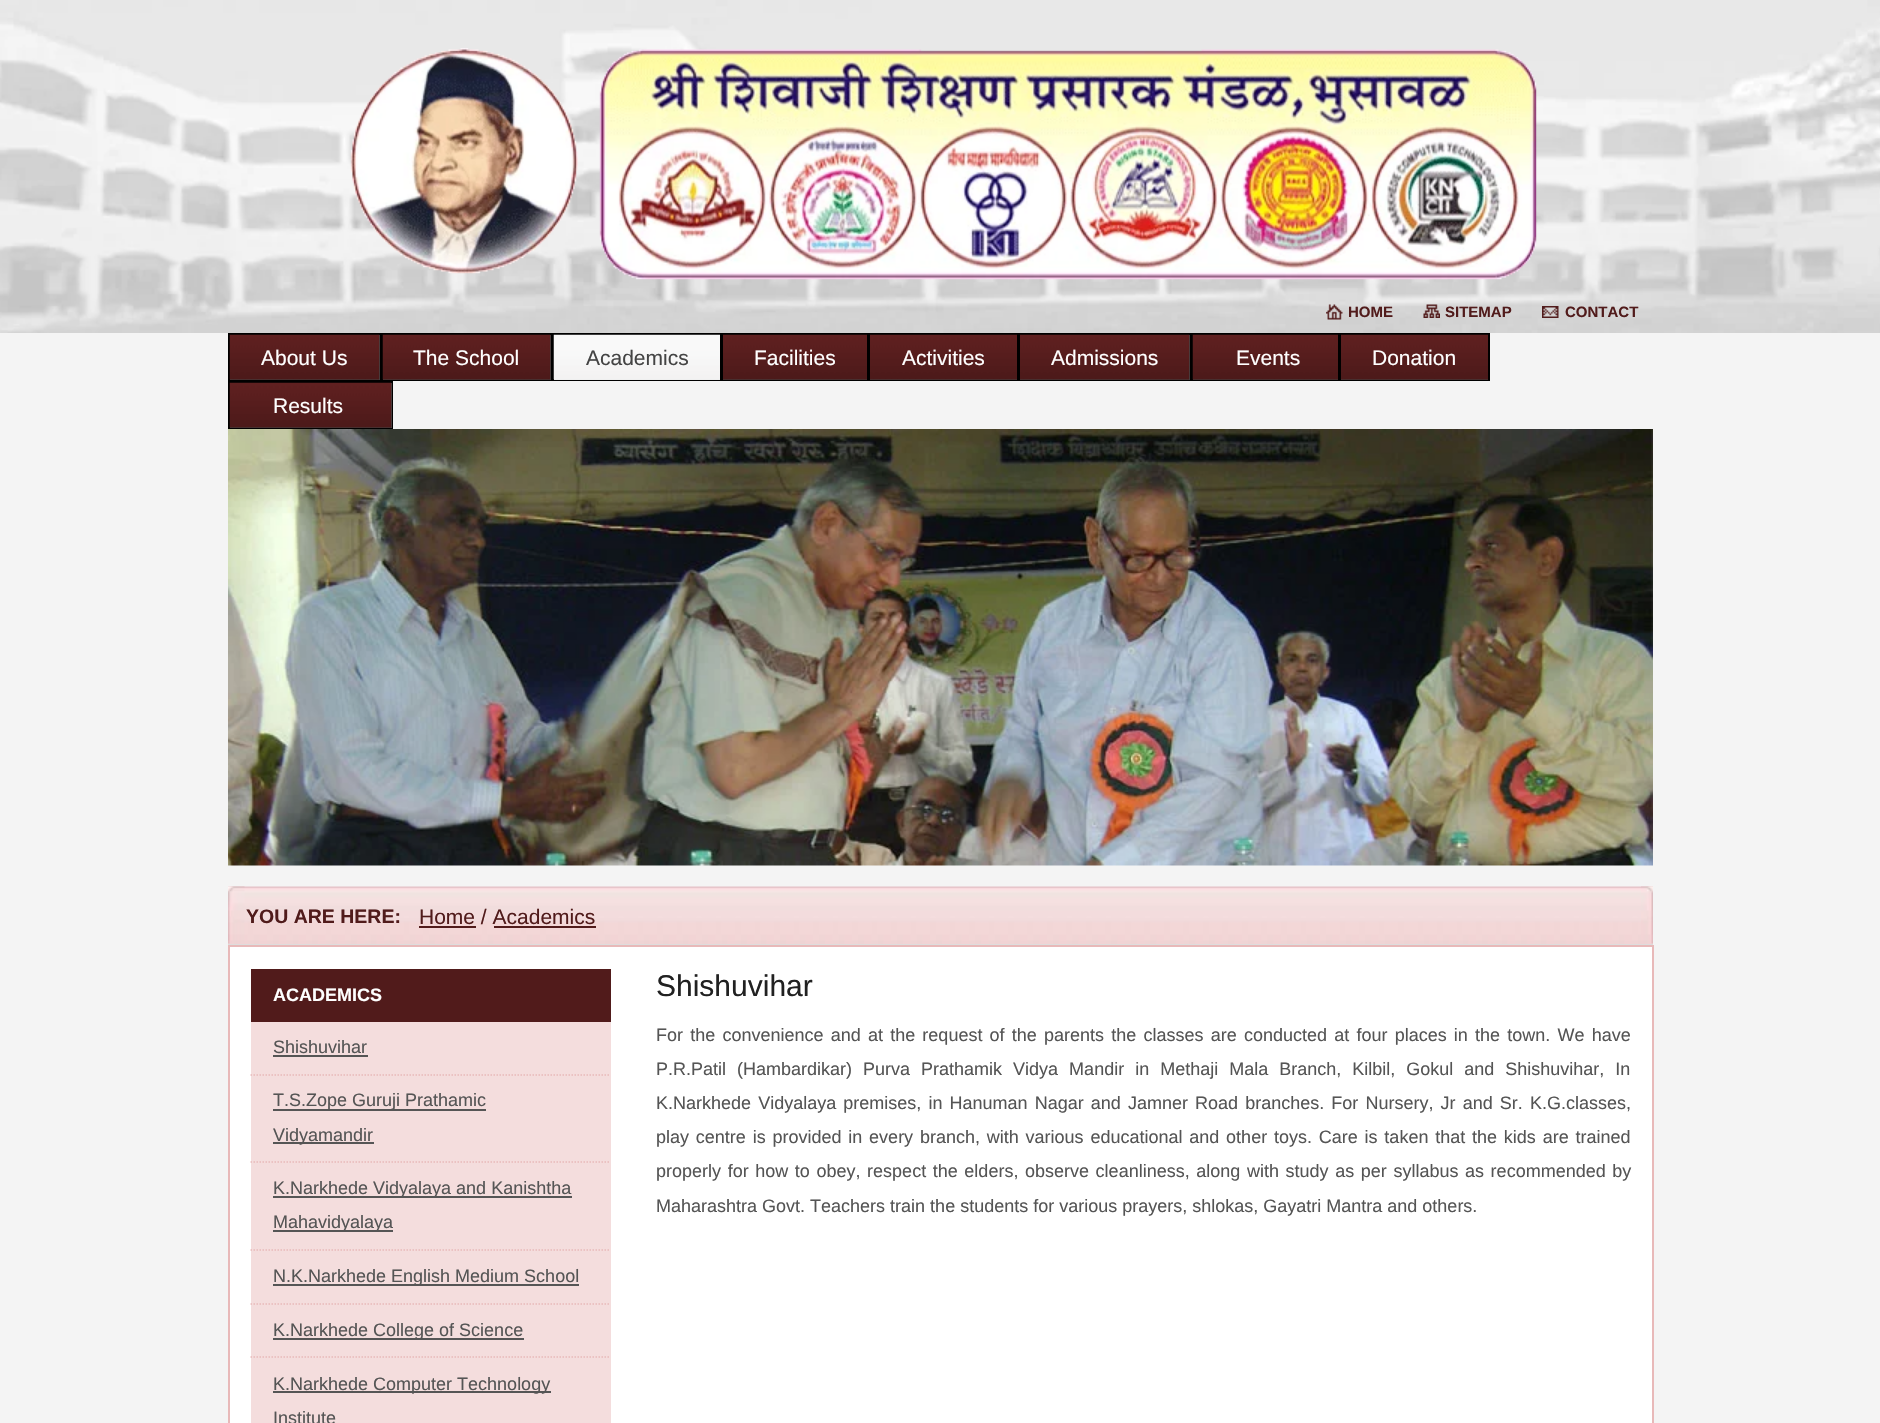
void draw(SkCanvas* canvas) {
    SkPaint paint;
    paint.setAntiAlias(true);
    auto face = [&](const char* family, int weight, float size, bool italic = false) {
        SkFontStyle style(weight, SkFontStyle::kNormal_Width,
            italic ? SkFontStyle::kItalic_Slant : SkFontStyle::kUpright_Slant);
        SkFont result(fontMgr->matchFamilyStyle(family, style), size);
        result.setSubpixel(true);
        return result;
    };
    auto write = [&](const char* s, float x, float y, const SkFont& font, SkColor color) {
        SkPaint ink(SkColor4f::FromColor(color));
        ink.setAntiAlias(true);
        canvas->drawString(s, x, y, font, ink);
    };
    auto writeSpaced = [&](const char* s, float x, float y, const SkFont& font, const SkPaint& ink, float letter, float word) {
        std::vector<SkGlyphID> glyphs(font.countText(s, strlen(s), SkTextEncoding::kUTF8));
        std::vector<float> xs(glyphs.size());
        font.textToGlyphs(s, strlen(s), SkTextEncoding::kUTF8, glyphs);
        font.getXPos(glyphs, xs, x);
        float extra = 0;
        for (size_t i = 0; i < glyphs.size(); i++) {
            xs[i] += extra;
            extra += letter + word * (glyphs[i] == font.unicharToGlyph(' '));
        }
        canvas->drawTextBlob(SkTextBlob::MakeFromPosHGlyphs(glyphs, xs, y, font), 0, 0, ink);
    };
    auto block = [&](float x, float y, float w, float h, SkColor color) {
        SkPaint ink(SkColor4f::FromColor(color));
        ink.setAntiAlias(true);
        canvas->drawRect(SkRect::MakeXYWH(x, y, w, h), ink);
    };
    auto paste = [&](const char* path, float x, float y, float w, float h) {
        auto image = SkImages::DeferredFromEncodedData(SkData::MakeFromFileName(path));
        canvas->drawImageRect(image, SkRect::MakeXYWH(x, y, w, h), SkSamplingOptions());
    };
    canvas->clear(SkColorSetRGB(244, 244, 244));
    paste("pic1.png", 0, 0, 1880, 333);
    paste("pic2.png", 350, 48, 1187, 232);
    paste("pic3.png", 1326, 304, 17, 16);
    auto kFont1 = face("Liberation Sans", 700, 15);
    write("HOME", 1348, 317, kFont1, SkColorSetRGB(81, 27, 27));
    paste("pic4.png", 1423, 304, 17, 14);
    write("SITEMAP", 1445, 317, kFont1, SkColorSetRGB(81, 27, 27));
    paste("pic5.png", 1542, 306, 17, 12);
    write("CONTACT", 1565, 317, kFont1, SkColorSetRGB(81, 27, 27));
    paint.setStyle(SkPaint::kStroke_Style);
    paint.setStrokeWidth(2);
    paint.setColor(SK_ColorBLACK);
    canvas->drawRect(SkRect::MakeXYWH(229, 334, 151, 46), paint);
    block(230, 335, 150, 45, SkColorSetRGB(68, 68, 68));
    paste("pic6.png", 229, 334, 151, 46);
    auto kFont2 = face("Liberation Sans", 400, 21);
    write("About Us", 261, 365, kFont2, SK_ColorWHITE);
    canvas->drawRect(SkRect::MakeXYWH(382, 334, 169, 46), paint);
    block(383, 335, 168, 45, SkColorSetRGB(68, 68, 68));
    paste("pic7.png", 382, 334, 169, 46);
    write("The School", 413, 365, kFont2, SK_ColorWHITE);
    canvas->drawRect(SkRect::MakeXYWH(553, 334, 168, 46), paint);
    block(554, 379, 166, 1, SkColorSetRGB(238, 238, 238));
    paste("pic8.png", 553, 334, 167, 46);
    write("Academics", 586, 365, kFont2, SkColorSetRGB(68, 68, 68));
    canvas->drawRect(SkRect::MakeXYWH(723, 334, 145, 46), paint);
    block(723, 379, 144, 1, SkColorSetRGB(68, 68, 68));
    paste("pic9.png", 723, 334, 144, 46);
    write("Facilities", 754, 365, kFont2, SK_ColorWHITE);
    canvas->drawRect(SkRect::MakeXYWH(870, 334, 148, 46), paint);
    block(870, 379, 147, 1, SkColorSetRGB(68, 68, 68));
    paste("pic10.png", 870, 334, 147, 46);
    write("Activities", 902, 365, kFont2, SK_ColorWHITE);
    canvas->drawRect(SkRect::MakeXYWH(1020, 334, 170, 46), paint);
    block(1020, 335, 170, 45, SkColorSetRGB(68, 68, 68));
    paste("pic11.png", 1020, 334, 170, 46);
    write("Admissions", 1051, 365, kFont2, SK_ColorWHITE);
    canvas->drawRect(SkRect::MakeXYWH(1192, 334, 147, 46), paint);
    block(1193, 379, 145, 1, SkColorSetRGB(68, 68, 68));
    paste("pic12.png", 1192, 334, 146, 46);
    write("Events", 1236, 365, kFont2, SK_ColorWHITE);
    canvas->drawRect(SkRect::MakeXYWH(1341, 334, 148, 46), paint);
    block(1341, 379, 147, 1, SkColorSetRGB(68, 68, 68));
    paste("pic13.png", 1341, 334, 147, 46);
    write("Donation", 1372, 365, kFont2, SK_ColorWHITE);
    canvas->drawRect(SkRect::MakeXYWH(229, 382, 163, 46), paint);
    block(230, 383, 162, 45, SkColorSetRGB(68, 68, 68));
    paste("pic14.png", 229, 382, 163, 46);
    write("Results", 273, 413, kFont2, SK_ColorWHITE);
    paste("pic15.png", 228, 429, 1425, 437);
    block(230, 947, 1422, 476, SK_ColorWHITE);
    paste("pic16.png", 228, 886, 1425, 58);
    block(228, 944, 1425, 1, SkColorSetRGB(221, 221, 221));
    paste("pic17.png", 228, 886, 17, 58);
    paste("pic18.png", 1641, 886, 12, 58);
    auto kFont3 = face("Liberation Sans", 700, 19.5f);
    write("YOU ARE HERE:", 246, 923, kFont3, SkColorSetRGB(81, 27, 27));
    write("Home / Academics", 419, 924, kFont2, SkColorSetRGB(81, 27, 27));
    block(419, 926, 57, 2, SkColorSetRGB(81, 27, 27));
    block(494, 926, 102, 2, SkColorSetRGB(81, 27, 27));
    block(228, 945, 1425, 2, SkColorSetRGB(232, 185, 185));
    block(1652, 945, 2, 478, SkColorSetRGB(232, 185, 185));
    block(228, 945, 2, 478, SkColorSetRGB(232, 185, 185));
    block(251, 969, 360, 53, SkColorSetRGB(81, 27, 27));
    auto kFont4 = face("Liberation Sans", 700, 18);
    write("ACADEMICS", 273, 1001, kFont4, SK_ColorWHITE);
    block(251, 1022, 360, 401, SkColorSetRGB(244, 221, 221));
    paint.setStrokeWidth(1.5f);
    paint.setColor(SkColorSetRGB(232, 185, 185));
    paint.setPathEffect(SkDashPathEffect::Make({{1.5f, 1.5f}}, 0));
    canvas->drawPath(SkPathBuilder().moveTo(250.5f, 1075).lineTo(610.5f, 1075).detach(), paint);
    paint.setPathEffect(nullptr);
    auto kFont5 = face("Liberation Sans", 400, 18);
    write("Shishuvihar", 273, 1053, kFont5, SkColorSetRGB(85, 85, 85));
    block(273, 1055, 95, 2, SkColorSetRGB(85, 85, 85));
    paint.setPathEffect(SkDashPathEffect::Make({{1.5f, 1.5f}}, 0));
    canvas->drawPath(SkPathBuilder().moveTo(250.5f, 1162).lineTo(610.5f, 1162).detach(), paint);
    paint.setPathEffect(nullptr);
    block(273, 1109, 213, 2, SkColorSetRGB(85, 85, 85));
    write("T.S.Zope Guruji Prathamic", 273, 1106, kFont5, SkColorSetRGB(85, 85, 85));
    block(273, 1142, 101, 2, SkColorSetRGB(85, 85, 85));
    write("Vidyamandir", 273, 1141, kFont5, SkColorSetRGB(85, 85, 85));
    paint.setPathEffect(SkDashPathEffect::Make({{1.5f, 1.5f}}, 0));
    canvas->drawPath(SkPathBuilder().moveTo(250.5f, 1250).lineTo(610.5f, 1250).detach(), paint);
    paint.setPathEffect(nullptr);
    block(273, 1196, 299, 2, SkColorSetRGB(85, 85, 85));
    write("K.Narkhede Vidyalaya and Kanishtha", 273, 1194, kFont5, SkColorSetRGB(85, 85, 85));
    block(273, 1230, 120, 2, SkColorSetRGB(85, 85, 85));
    write("Mahavidyalaya", 273, 1228, kFont5, SkColorSetRGB(85, 85, 85));
    paint.setPathEffect(SkDashPathEffect::Make({{1.5f, 1.5f}}, 0));
    canvas->drawPath(SkPathBuilder().moveTo(250.5f, 1304).lineTo(610.5f, 1304).detach(), paint);
    paint.setPathEffect(nullptr);
    block(273, 1284, 306, 2, SkColorSetRGB(85, 85, 85));
    write("N.K.Narkhede English Medium School", 273, 1282, kFont5, SkColorSetRGB(85, 85, 85));
    paint.setPathEffect(SkDashPathEffect::Make({{1.5f, 1.5f}}, 0));
    canvas->drawPath(SkPathBuilder().moveTo(250.5f, 1357).lineTo(610.5f, 1357).detach(), paint);
    paint.setPathEffect(nullptr);
    block(273, 1338, 251, 2, SkColorSetRGB(85, 85, 85));
    write("K.Narkhede College of Science", 273, 1336, kFont5, SkColorSetRGB(85, 85, 85));
    block(273, 1391, 278, 2, SkColorSetRGB(85, 85, 85));
    write("K.Narkhede Computer Technology", 273, 1390, kFont5, SkColorSetRGB(85, 85, 85));
    write("Institute", 273, 1424, kFont5, SkColorSetRGB(85, 85, 85));
    auto kFont6 = face("Liberation Sans", 400, 30);
    write("Shishuvihar", 656, 996, kFont6, SkColorSetRGB(33, 33, 33));
    paint.setStyle(SkPaint::kFill_Style);
    paint.setColor(SkColorSetRGB(85, 85, 85));
    writeSpaced("For the convenience and at the request of the parents the classes are conducted at four places in the town. We have", 656, 1041, kFont5, paint, 0, 2.2f);
    writeSpaced("P.R.Patil (Hambardikar) Purva Prathamik Vidya Mandir in Methaji Mala Branch, Kilbil, Gokul and Shishuvihar, In", 656, 1075, kFont5, paint, 0, 6);
    writeSpaced("K.Narkhede Vidyalaya premises, in Hanuman Nagar and Jamner Road branches. For Nursery, Jr and Sr. K.G.classes,", 656, 1109, kFont5, paint, 0, 2.1f);
    writeSpaced("play centre is provided in every branch, with various educational and other toys. Care is taken that the kids are trained", 656, 1143, kFont5, paint, 0, 1.8f);
    writeSpaced("properly for how to obey, respect the elders, observe cleanliness, along with study as per syllabus as recommended by", 656, 1177, kFont5, paint, 0, 1.6f);
    write("Maharashtra Govt. Teachers train the students for various prayers, shlokas, Gayatri Mantra and others.", 656, 1212, kFont5, SkColorSetRGB(85, 85, 85));
}
